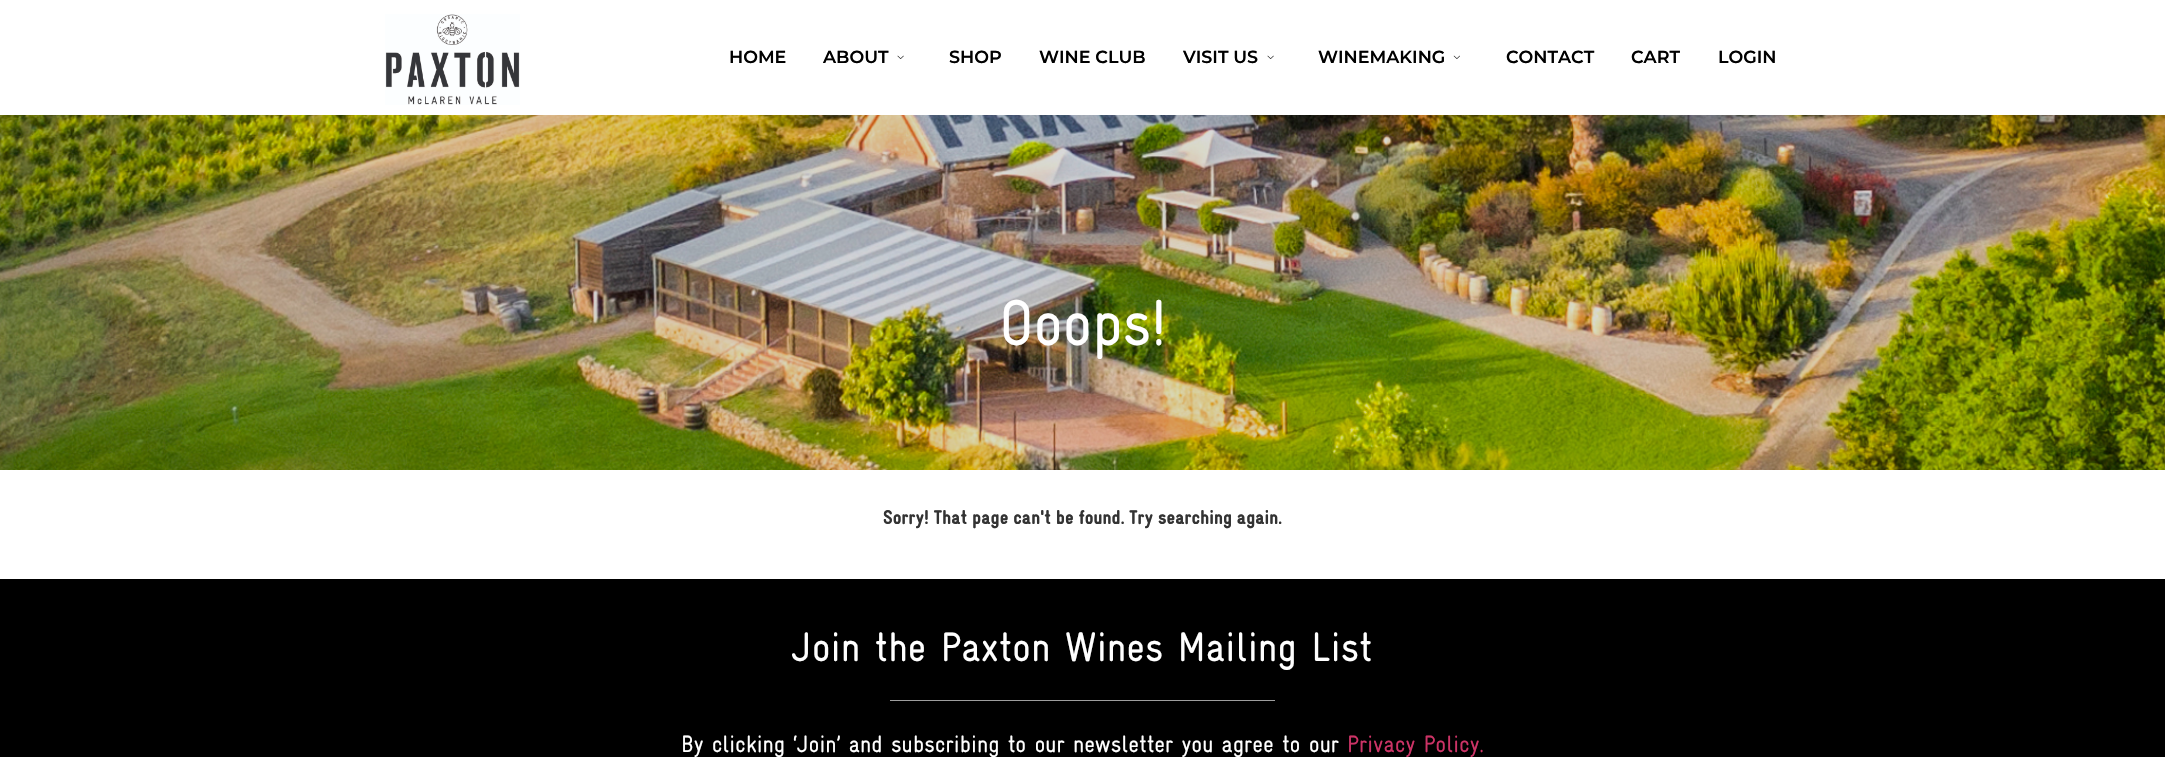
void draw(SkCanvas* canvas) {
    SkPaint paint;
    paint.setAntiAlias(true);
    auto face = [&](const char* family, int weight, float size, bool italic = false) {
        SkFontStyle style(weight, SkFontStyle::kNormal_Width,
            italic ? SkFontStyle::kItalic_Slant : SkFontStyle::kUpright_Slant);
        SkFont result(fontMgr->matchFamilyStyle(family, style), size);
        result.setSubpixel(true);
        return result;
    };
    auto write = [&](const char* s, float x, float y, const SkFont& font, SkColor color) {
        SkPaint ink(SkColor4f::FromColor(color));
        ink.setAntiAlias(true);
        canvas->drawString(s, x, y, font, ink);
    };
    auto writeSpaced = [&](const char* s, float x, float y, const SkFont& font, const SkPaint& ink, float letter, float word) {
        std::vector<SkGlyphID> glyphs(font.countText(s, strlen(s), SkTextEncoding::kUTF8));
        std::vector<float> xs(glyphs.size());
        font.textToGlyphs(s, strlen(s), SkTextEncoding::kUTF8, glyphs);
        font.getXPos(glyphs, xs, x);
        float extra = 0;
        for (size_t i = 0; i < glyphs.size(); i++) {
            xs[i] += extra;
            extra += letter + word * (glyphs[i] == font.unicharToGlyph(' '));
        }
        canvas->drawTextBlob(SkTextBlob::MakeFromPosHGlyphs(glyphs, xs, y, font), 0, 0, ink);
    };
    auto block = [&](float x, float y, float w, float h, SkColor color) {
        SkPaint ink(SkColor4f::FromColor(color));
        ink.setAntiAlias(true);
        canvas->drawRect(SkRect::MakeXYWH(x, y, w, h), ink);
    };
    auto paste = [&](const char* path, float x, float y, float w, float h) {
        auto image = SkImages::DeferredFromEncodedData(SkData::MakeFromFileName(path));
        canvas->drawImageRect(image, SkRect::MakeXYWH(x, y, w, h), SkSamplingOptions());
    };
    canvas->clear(SK_ColorWHITE);
    paste("pic1.png", 385, 14, 135, 91);
    auto kFont1 = face("Montserrat", 600, 17.5f);
    write("HOME", 729, 63, kFont1, SK_ColorBLACK);
    write("ABOUT", 823, 63, kFont1, SK_ColorBLACK);
    paste("pic2.png", 897, 55, 7, 4);
    write("SHOP", 949, 63, kFont1, SK_ColorBLACK);
    write("WINE CLUB", 1039, 63, kFont1, SK_ColorBLACK);
    write("VISIT US", 1183, 63, kFont1, SK_ColorBLACK);
    paste("pic2.png", 1267, 55, 7, 4);
    write("WINEMAKING", 1318, 63, kFont1, SK_ColorBLACK);
    paste("pic3.png", 1453, 55, 7, 4);
    write("CONTACT", 1506, 63, kFont1, SK_ColorBLACK);
    write("CART", 1631, 63, kFont1, SK_ColorBLACK);
    write("LOGIN", 1718, 63, kFont1, SK_ColorBLACK);
    paste("pic4.png", 0, 115, 2165, 355);
    auto kFont2 = face("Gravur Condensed", 400, 65);
    paint.setColor(SK_ColorWHITE);
    writeSpaced("Ooops!", 999, 345, kFont2, paint, -0.75f, 0);
    auto kFont3 = face("Gravur Condensed", 900, 20);
    write("Sorry! That page can't be found. Try searching again.", 883, 524, kFont3, SkColorSetRGB(51, 51, 51));
    block(0, 579, 2165, 178, SK_ColorBLACK);
    auto kFont4 = face("Gravur Condensed", 400, 41.25f);
    write("Join the Paxton Wines Mailing List", 792, 661, kFont4, SK_ColorWHITE);
    block(890, 700, 385, 1, SkColorSetRGB(158, 158, 158));
    auto kFont5 = face("Gravur Condensed", 400, 23.75f);
    write("By clicking ‘Join’ and subscribing to our newsletter you agree to our", 681, 752, kFont5, SK_ColorWHITE);
    write("Privacy Policy.", 1347, 752, kFont5, SkColorSetRGB(204, 51, 102));
}
